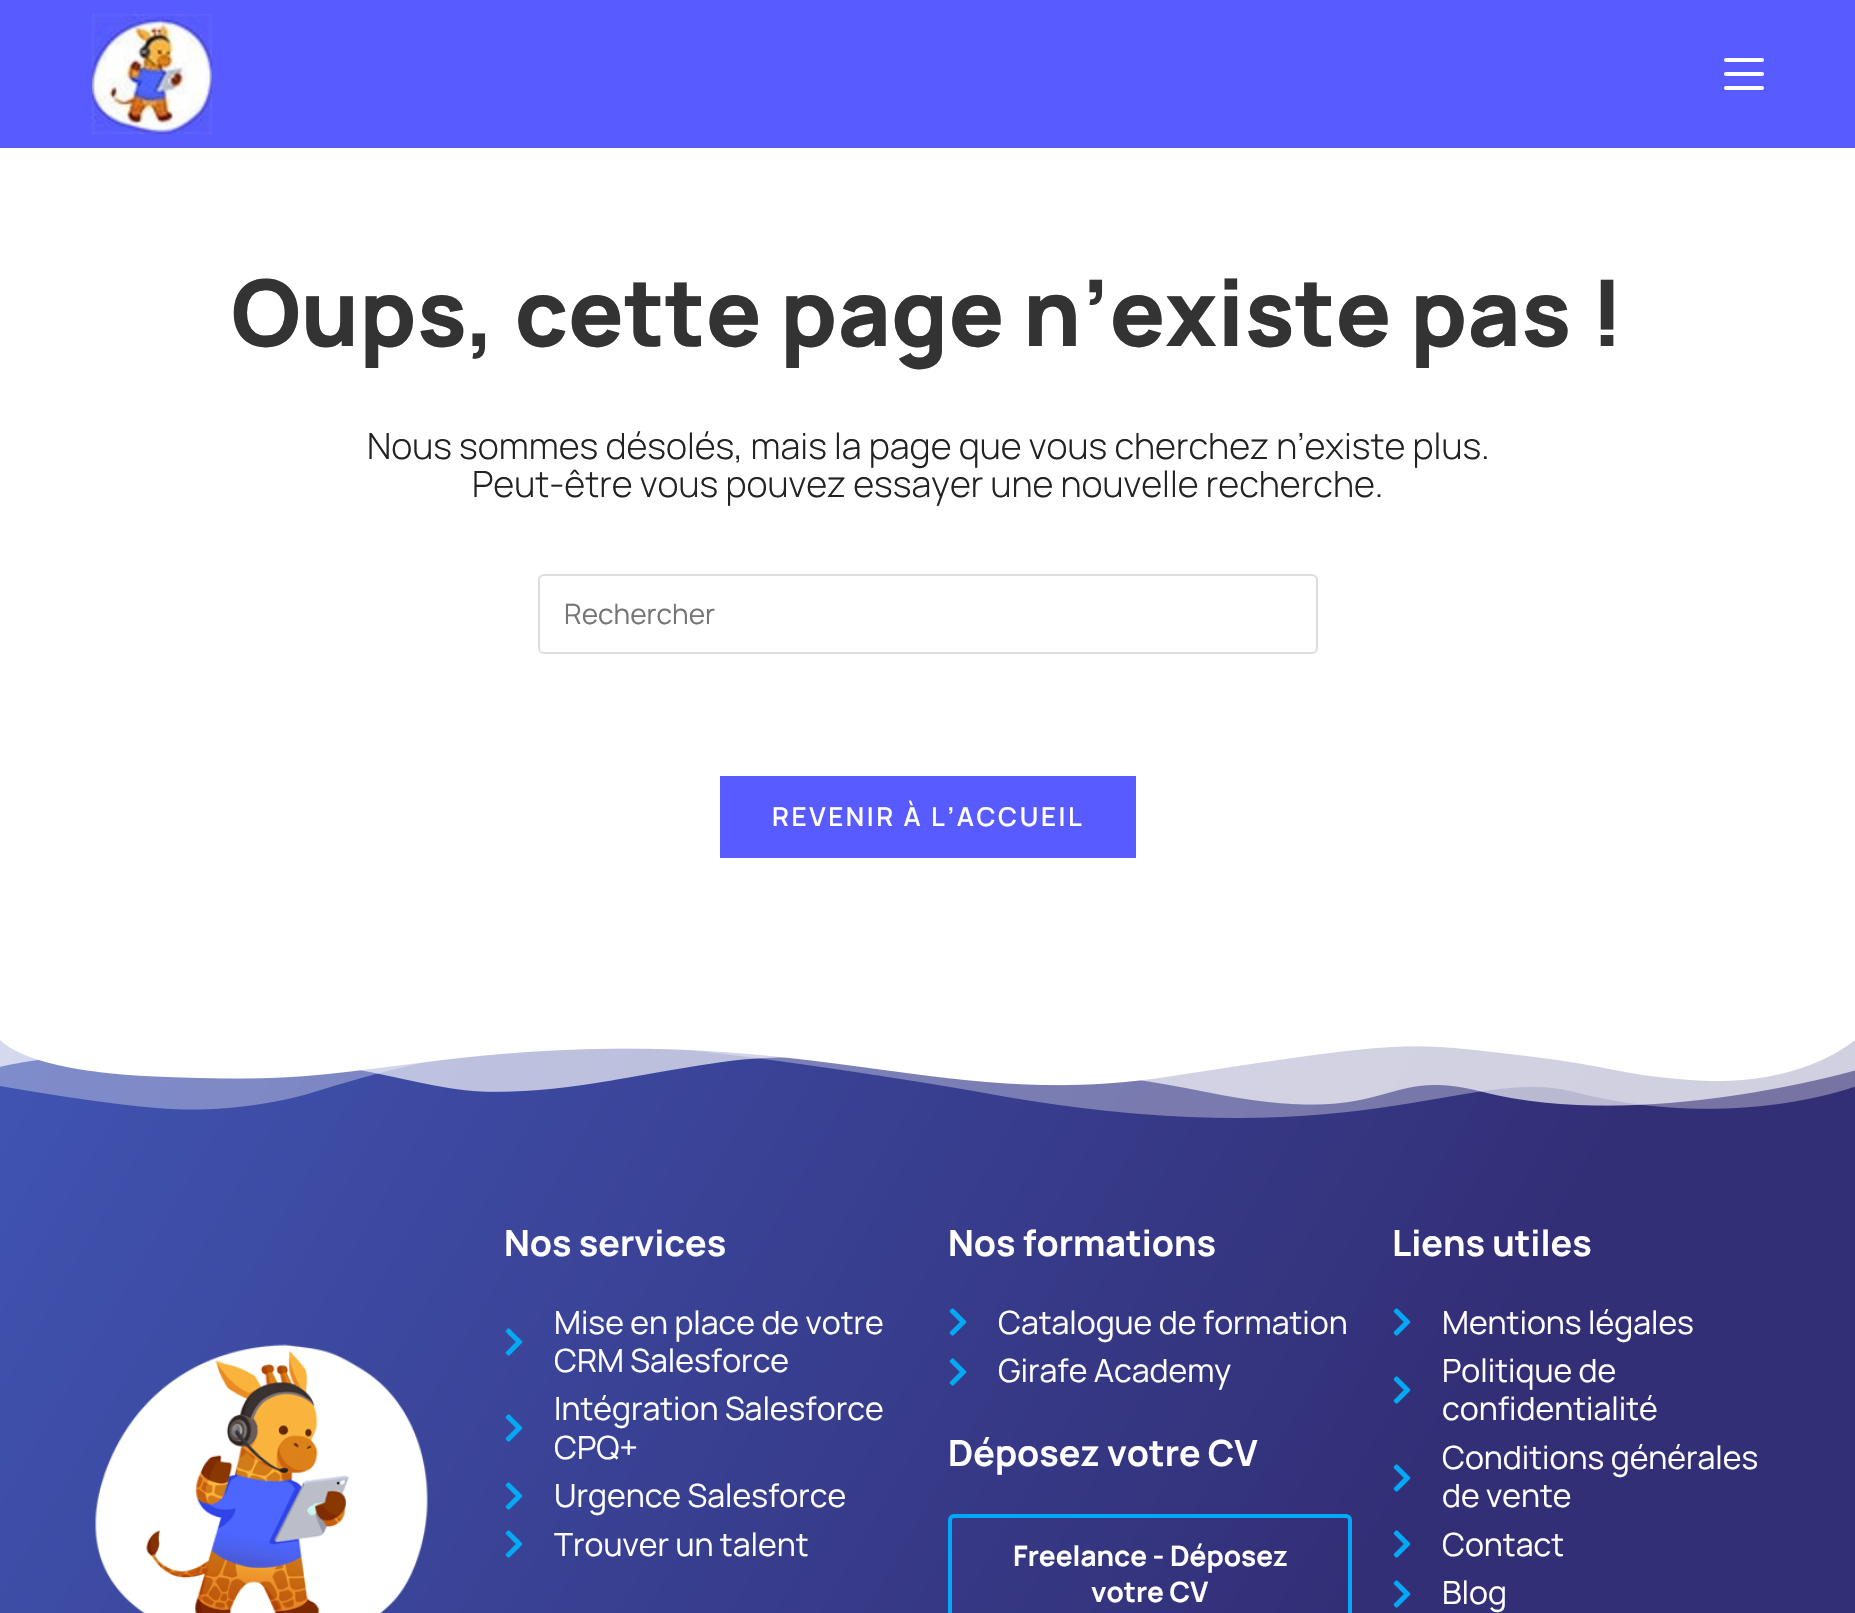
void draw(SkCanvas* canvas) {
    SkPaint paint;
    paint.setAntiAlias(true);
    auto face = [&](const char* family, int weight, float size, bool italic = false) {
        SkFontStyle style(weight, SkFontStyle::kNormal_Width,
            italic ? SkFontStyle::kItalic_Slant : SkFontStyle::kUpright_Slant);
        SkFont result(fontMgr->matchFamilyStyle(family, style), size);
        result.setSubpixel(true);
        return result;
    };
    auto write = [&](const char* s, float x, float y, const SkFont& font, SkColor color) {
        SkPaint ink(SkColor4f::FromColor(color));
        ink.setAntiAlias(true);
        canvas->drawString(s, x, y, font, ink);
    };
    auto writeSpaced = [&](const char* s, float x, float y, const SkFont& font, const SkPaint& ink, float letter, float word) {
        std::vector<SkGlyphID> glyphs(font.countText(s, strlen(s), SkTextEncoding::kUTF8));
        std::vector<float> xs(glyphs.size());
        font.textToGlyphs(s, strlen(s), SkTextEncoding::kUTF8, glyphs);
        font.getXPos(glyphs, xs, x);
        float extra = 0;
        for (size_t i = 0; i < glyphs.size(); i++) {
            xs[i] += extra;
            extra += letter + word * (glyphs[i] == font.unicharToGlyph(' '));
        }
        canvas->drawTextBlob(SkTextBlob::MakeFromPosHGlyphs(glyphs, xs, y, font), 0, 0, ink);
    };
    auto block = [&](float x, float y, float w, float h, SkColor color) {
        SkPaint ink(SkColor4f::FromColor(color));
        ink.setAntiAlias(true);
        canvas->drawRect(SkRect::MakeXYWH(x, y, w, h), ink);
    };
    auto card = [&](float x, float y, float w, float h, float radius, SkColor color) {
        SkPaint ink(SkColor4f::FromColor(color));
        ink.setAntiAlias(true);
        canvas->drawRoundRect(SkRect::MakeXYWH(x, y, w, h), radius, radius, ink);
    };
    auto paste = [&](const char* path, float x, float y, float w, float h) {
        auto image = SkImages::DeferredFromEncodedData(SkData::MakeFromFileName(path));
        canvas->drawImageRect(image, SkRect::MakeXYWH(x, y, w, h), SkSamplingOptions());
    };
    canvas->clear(SK_ColorWHITE);
    block(0, 0, 1855, 148, SkColorSetRGB(88, 91, 255));
    paste("pic1.png", 92, 14, 120, 120);
    card(1724, 72, 40, 4, 2, SK_ColorWHITE);
    card(1724, 58, 40, 4, 2, SK_ColorWHITE);
    card(1724, 86, 40, 4, 2, SK_ColorWHITE);
    auto kFont1 = face("Manrope", 800, 92);
    write("Oups, cette page n’existe pas !", 231, 346, kFont1, SkColorSetRGB(51, 51, 51));
    auto kFont2 = face("Manrope", 300, 36);
    write("Nous sommes désolés, mais la page que vous cherchez n’existe plus.", 367, 459, kFont2, SkColorSetRGB(34, 34, 34));
    write("Peut-être vous pouvez essayer une nouvelle recherche.", 472, 497, kFont2, SkColorSetRGB(34, 34, 34));
    paint.setStyle(SkPaint::kStroke_Style);
    paint.setStrokeWidth(2);
    paint.setColor(SkColorSetRGB(221, 221, 221));
    canvas->drawRoundRect(SkRect::MakeXYWH(539, 575, 778, 78), 5, 5, paint);
    auto kFont3 = face("Manrope", 400, 28);
    write("Rechercher", 564, 624, kFont3, SkColorSetRGB(117, 117, 117));
    block(720, 776, 416, 82, SkColorSetRGB(88, 91, 255));
    auto kFont4 = face("Manrope", 600, 26);
    paint.setStyle(SkPaint::kFill_Style);
    paint.setColor(SK_ColorWHITE);
    writeSpaced("REVENIR À L’ACCUEIL", 772, 826, kFont4, paint, 2.6f, 0);
    {
        const SkColor colors[] = {SkColorSetRGB(64, 84, 178), SkColorSetRGB(51, 47, 119)};
        const float stops[] = {0, 0.7f};
        const SkPoint ends[] = {{34, 982}, {1822, 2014}};
        paint.setShader(SkGradientShader::MakeLinear(ends, colors, stops, 2, SkTileMode::kClamp));
        paint.setAlpha(255);
    }
    canvas->drawRect(SkRect::MakeXYWH(0, 1040, 1855, 573), paint);
    paste("pic2.png", 0, 1040, 1855, 78);
    paste("pic3.png", 95, 1344, 333, 269);
    auto kFont5 = face("Manrope", 700, 36);
    write("Nos services", 504, 1256, kFont5, SK_ColorWHITE);
    paste("pic4.png", 505, 1328, 18, 28);
    auto kFont6 = face("Manrope", 400, 32);
    write("Mise en place de votre", 554, 1334, kFont6, SK_ColorWHITE);
    write("CRM Salesforce", 554, 1372, kFont6, SK_ColorWHITE);
    paste("pic5.png", 505, 1414, 18, 28);
    write("Intégration Salesforce", 554, 1420, kFont6, SK_ColorWHITE);
    write("CPQ+", 554, 1459, kFont6, SK_ColorWHITE);
    paste("pic6.png", 505, 1482, 18, 28);
    write("Urgence Salesforce", 554, 1507, kFont6, SK_ColorWHITE);
    paste("pic7.png", 505, 1530, 18, 28);
    write("Trouver un talent", 554, 1556, kFont6, SK_ColorWHITE);
    write("Nos formations", 948, 1256, kFont5, SK_ColorWHITE);
    paste("pic8.png", 949, 1308, 18, 28);
    write("Catalogue de formation", 998, 1334, kFont6, SK_ColorWHITE);
    paste("pic9.png", 949, 1358, 18, 28);
    write("Girafe Academy", 998, 1382, kFont6, SK_ColorWHITE);
    write("Déposez votre CV", 948, 1466, kFont5, SK_ColorWHITE);
    paint.setStyle(SkPaint::kStroke_Style);
    paint.setStrokeWidth(4);
    paint.setShader(nullptr);
    paint.setColor(SkColorSetRGB(3, 169, 244));
    canvas->drawRoundRect(SkRect::MakeXYWH(950, 1516, 400, 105), 4, 4, paint);
    auto kFont7 = face("Manrope", 700, 28);
    write("Freelance - Déposez", 1013, 1566, kFont7, SK_ColorWHITE);
    write("votre CV", 1091, 1602, kFont7, SK_ColorWHITE);
    write("Liens utiles", 1392, 1256, kFont5, SK_ColorWHITE);
    paste("pic10.png", 1393, 1308, 18, 28);
    write("Mentions légales", 1442, 1334, kFont6, SK_ColorWHITE);
    paste("pic11.png", 1393, 1376, 18, 28);
    write("Politique de", 1442, 1382, kFont6, SK_ColorWHITE);
    write("confidentialité", 1442, 1420, kFont6, SK_ColorWHITE);
    paste("pic12.png", 1393, 1464, 18, 28);
    write("Conditions générales", 1442, 1469, kFont6, SK_ColorWHITE);
    write("de vente", 1442, 1507, kFont6, SK_ColorWHITE);
    paste("pic13.png", 1393, 1530, 18, 28);
    write("Contact", 1442, 1556, kFont6, SK_ColorWHITE);
    paste("pic13.png", 1393, 1580, 18, 28);
    write("Blog", 1442, 1604, kFont6, SK_ColorWHITE);
}
